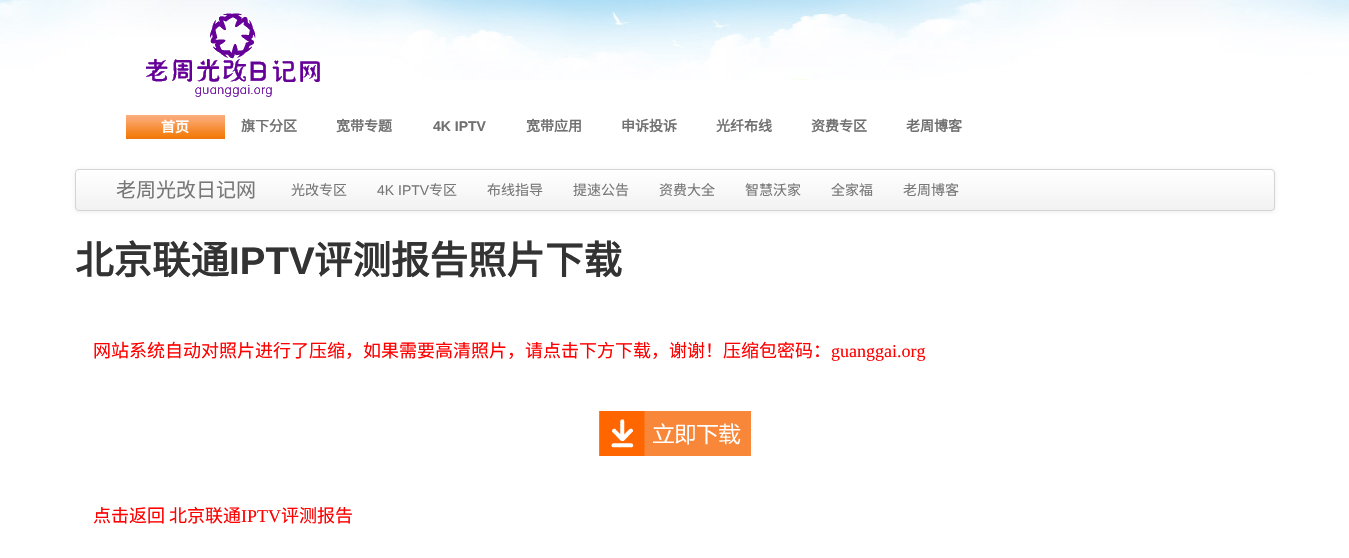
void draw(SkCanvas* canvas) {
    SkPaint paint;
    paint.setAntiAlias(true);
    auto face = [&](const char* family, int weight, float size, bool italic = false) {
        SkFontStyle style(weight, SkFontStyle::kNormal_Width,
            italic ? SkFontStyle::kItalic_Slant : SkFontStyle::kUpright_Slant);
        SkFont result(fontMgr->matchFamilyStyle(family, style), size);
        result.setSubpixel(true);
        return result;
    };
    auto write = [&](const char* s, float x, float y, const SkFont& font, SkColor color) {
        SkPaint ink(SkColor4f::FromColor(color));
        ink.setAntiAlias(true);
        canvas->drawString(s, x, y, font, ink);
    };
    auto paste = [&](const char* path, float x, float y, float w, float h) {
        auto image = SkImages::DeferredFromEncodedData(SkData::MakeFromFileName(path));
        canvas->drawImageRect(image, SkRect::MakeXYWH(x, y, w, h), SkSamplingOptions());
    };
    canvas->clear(SK_ColorWHITE);
    paste("pic1.png", 0, 0, 1349, 80);
    paste("pic2.png", 146, 13, 174, 84);
    paste("pic3.png", 126, 115, 99, 24);
    auto kFont1 = face("Noto Sans CJK SC", 700, 14);
    write("首页", 161, 132, kFont1, SK_ColorWHITE);
    write("旗下分区", 241, 131, kFont1, SkColorSetRGB(112, 112, 112));
    write("宽带专题", 336, 131, kFont1, SkColorSetRGB(112, 112, 112));
    auto kFont2 = face("Liberation Sans", 700, 14);
    write("4K IPTV", 433, 131, kFont2, SkColorSetRGB(112, 112, 112));
    write("宽带应用", 526, 131, kFont1, SkColorSetRGB(112, 112, 112));
    write("申诉投诉", 621, 131, kFont1, SkColorSetRGB(112, 112, 112));
    write("光纤布线", 716, 131, kFont1, SkColorSetRGB(112, 112, 112));
    write("资费专区", 811, 131, kFont1, SkColorSetRGB(112, 112, 112));
    write("老周博客", 906, 131, kFont1, SkColorSetRGB(112, 112, 112));
    paint.setColor(SkColorSetARGB(18, 0, 0, 0));
    paint.setMaskFilter(SkMaskFilter::MakeBlur(kNormal_SkBlurStyle, 2));
    canvas->drawRoundRect(SkRect::MakeXYWH(75, 170, 1200, 42), 4, 4, paint);
    paint.setMaskFilter(nullptr);
    canvas->save();
    canvas->clipPath(SkPathBuilder().moveTo(79, 169).lineTo(1271, 169).cubicTo(1273, 169, 1275, 171, 1275, 173).lineTo(1275, 207).cubicTo(1275, 209, 1273, 211, 1271, 211).lineTo(79, 211).cubicTo(77, 211, 75, 209, 75, 207).lineTo(75, 173).cubicTo(75, 171, 77, 169, 79, 169).close().detach(), true);
    {
        const SkColor colors[] = {SK_ColorWHITE, SkColorSetRGB(242, 242, 242)};
        const float stops[] = {0, 1};
        const SkPoint ends[] = {{675, 170}, {675, 210}};
        paint.setShader(SkGradientShader::MakeLinear(ends, colors, stops, 2, SkTileMode::kClamp));
        paint.setAlpha(255);
    }
    canvas->drawRect(SkRect::MakeXYWH(75, 170, 1200, 40), paint);
    canvas->restore();
    paint.setStyle(SkPaint::kStroke_Style);
    paint.setStrokeWidth(1);
    paint.setShader(nullptr);
    paint.setColor(SkColorSetRGB(212, 212, 212));
    canvas->drawRoundRect(SkRect::MakeXYWH(75.5f, 169.5f, 1199, 41), 3.5f, 3.5f, paint);
    auto kFont3 = face("Noto Sans CJK SC", 400, 20);
    write("老周光改日记网", 116, 197, kFont3, SkColorSetRGB(119, 119, 119));
    auto kFont4 = face("Noto Sans CJK SC", 400, 14);
    write("光改专区", 291, 195, kFont4, SkColorSetRGB(119, 119, 119));
    auto kFont5 = face("Liberation Sans", 400, 14);
    write("4K IPTV", 377, 195, kFont5, SkColorSetRGB(119, 119, 119));
    write("专区", 429, 195, kFont4, SkColorSetRGB(119, 119, 119));
    write("布线指导", 487, 195, kFont4, SkColorSetRGB(119, 119, 119));
    write("提速公告", 573, 195, kFont4, SkColorSetRGB(119, 119, 119));
    write("资费大全", 659, 195, kFont4, SkColorSetRGB(119, 119, 119));
    write("智慧沃家", 745, 195, kFont4, SkColorSetRGB(119, 119, 119));
    write("全家福", 831, 195, kFont4, SkColorSetRGB(119, 119, 119));
    write("老周博客", 903, 195, kFont4, SkColorSetRGB(119, 119, 119));
    auto kFont6 = face("Noto Sans CJK SC", 700, 38.5f);
    write("北京联通", 75, 274, kFont6, SkColorSetRGB(51, 51, 51));
    auto kFont7 = face("Liberation Sans", 700, 38.5f);
    write("IPTV", 229, 274, kFont7, SkColorSetRGB(51, 51, 51));
    write("评测报告照片下载", 314, 274, kFont6, SkColorSetRGB(51, 51, 51));
    auto kFont8 = face("Noto Sans CJK SC", 400, 18);
    write("网站系统自动对照片进行了压缩，如果需要高清照片，请点击下方下载，谢谢！压缩包密码：", 93, 357, kFont8, SkColorSetRGB(255, 0, 0));
    auto kFont9 = face("Liberation Serif", 400, 18);
    write("guanggai.org", 831, 357, kFont9, SkColorSetRGB(255, 0, 0));
    paste("pic4.png", 599, 411, 152, 45);
    write("点击返回 北京联通", 93, 522, kFont8, SkColorSetRGB(255, 0, 0));
    write("IPTV", 241, 522, kFont9, SkColorSetRGB(255, 0, 0));
    write("评测报告", 281, 522, kFont8, SkColorSetRGB(255, 0, 0));
}
